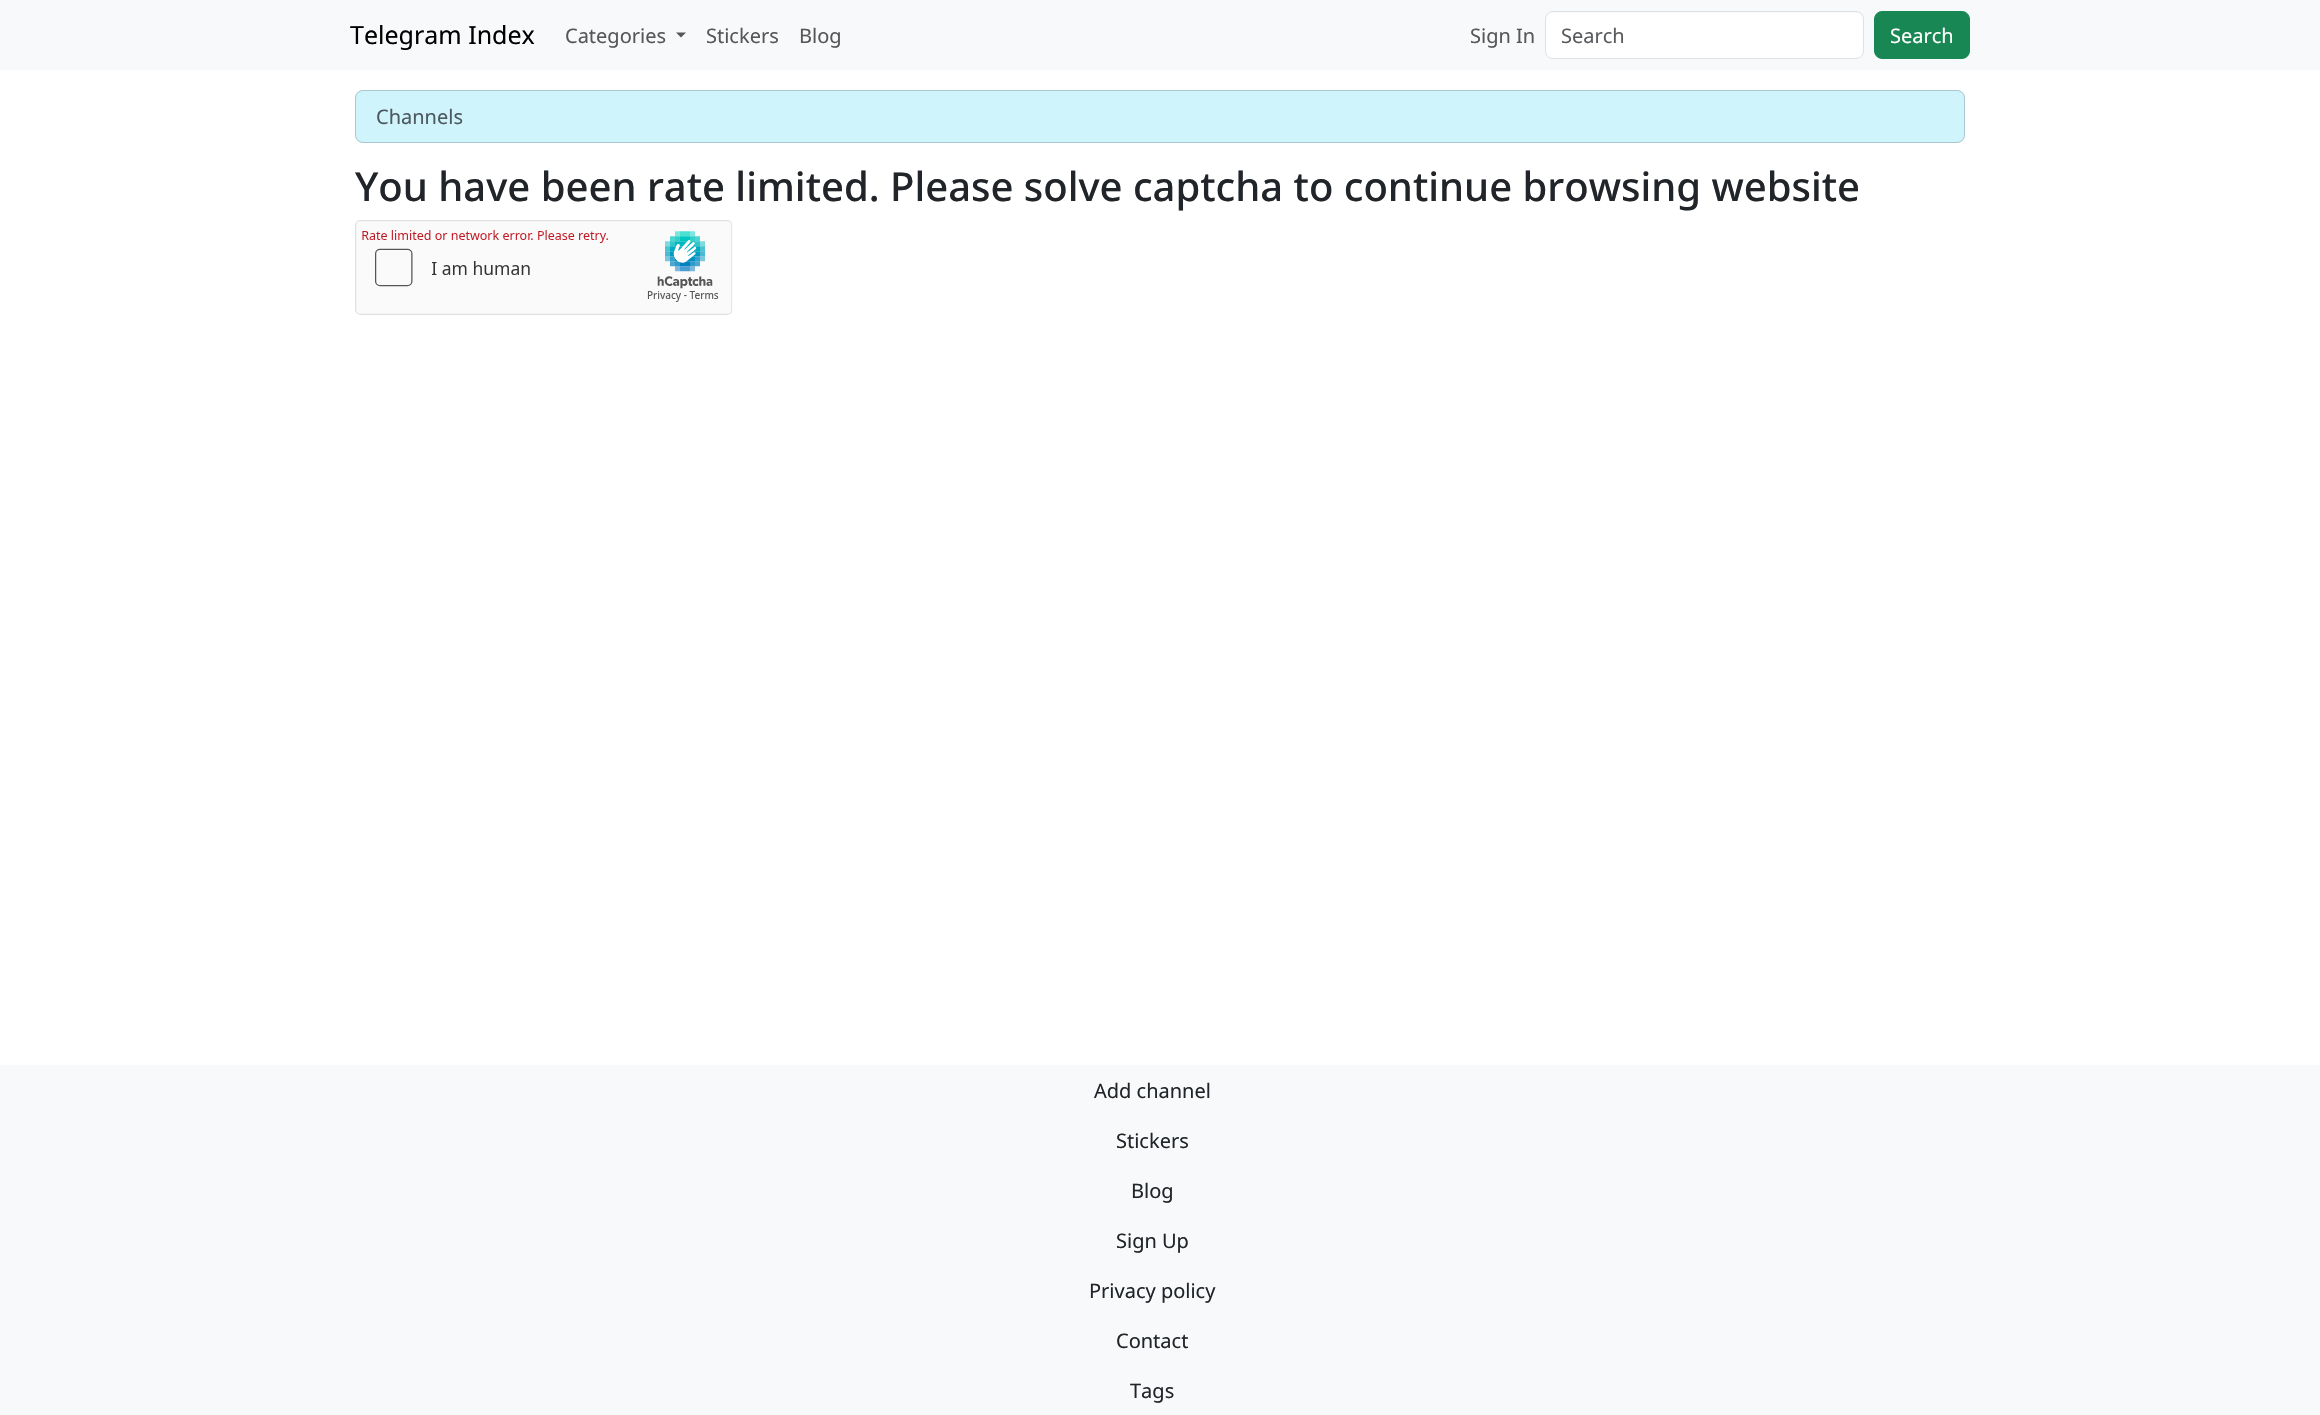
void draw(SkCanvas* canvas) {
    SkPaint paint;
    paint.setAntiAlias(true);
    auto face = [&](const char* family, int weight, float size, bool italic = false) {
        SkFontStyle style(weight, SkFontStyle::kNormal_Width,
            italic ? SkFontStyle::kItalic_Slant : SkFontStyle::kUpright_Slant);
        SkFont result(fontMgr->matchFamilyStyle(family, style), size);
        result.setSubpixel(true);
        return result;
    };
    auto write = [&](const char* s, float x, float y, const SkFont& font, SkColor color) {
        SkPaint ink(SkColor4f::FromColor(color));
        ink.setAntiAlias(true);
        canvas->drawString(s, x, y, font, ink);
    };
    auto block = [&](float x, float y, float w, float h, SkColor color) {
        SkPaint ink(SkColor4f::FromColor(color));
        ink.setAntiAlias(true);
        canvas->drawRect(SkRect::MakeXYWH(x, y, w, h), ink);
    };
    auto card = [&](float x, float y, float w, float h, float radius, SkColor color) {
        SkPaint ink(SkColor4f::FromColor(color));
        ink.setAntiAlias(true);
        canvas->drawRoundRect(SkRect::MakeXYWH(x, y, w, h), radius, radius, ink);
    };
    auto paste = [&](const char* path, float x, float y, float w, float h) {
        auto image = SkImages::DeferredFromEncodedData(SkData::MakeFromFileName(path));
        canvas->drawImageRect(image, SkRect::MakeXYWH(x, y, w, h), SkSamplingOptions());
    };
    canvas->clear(SK_ColorWHITE);
    block(0, 0, 2320, 70, SkColorSetRGB(248, 249, 250));
    auto kFont1 = face("Noto Sans", 400, 25);
    write("Telegram Index", 350, 44, kFont1, SK_ColorBLACK);
    auto kFont2 = face("Noto Sans", 400, 20);
    write("Categories", 565, 43, kFont2, SkColorSetRGB(87, 87, 88));
    paint.setColor(SkColorSetRGB(87, 87, 88));
    canvas->drawPath(SkPathBuilder().moveTo(676, 32.5f).lineTo(686, 32.5f).lineTo(681, 37.5f).close().detach(), paint);
    write("Stickers", 706, 43, kFont2, SkColorSetRGB(87, 87, 88));
    write("Blog", 799, 43, kFont2, SkColorSetRGB(87, 87, 88));
    write("Sign In", 1470, 43, kFont2, SkColorSetRGB(87, 87, 88));
    card(1546, 13, 317, 45, 6, SK_ColorWHITE);
    paint.setStyle(SkPaint::kStroke_Style);
    paint.setStrokeWidth(1);
    paint.setColor(SkColorSetRGB(222, 226, 230));
    canvas->drawRoundRect(SkRect::MakeXYWH(1545.5f, 11.5f, 318, 47), 7.5f, 7.5f, paint);
    write("Search", 1561, 43, kFont2, SkColorSetRGB(89, 92, 95));
    paint.setStyle(SkPaint::kFill_Style);
    paint.setColor(SkColorSetRGB(25, 135, 84));
    canvas->drawRoundRect(SkRect::MakeXYWH(1874.5f, 11.5f, 95, 47), 7.5f, 7.5f, paint);
    paint.setStyle(SkPaint::kStroke_Style);
    canvas->drawRoundRect(SkRect::MakeXYWH(1874.5f, 11.5f, 95, 47), 7.5f, 7.5f, paint);
    write("Search", 1890, 43, kFont2, SK_ColorWHITE);
    card(355, 90, 1610, 53, 8, SkColorSetRGB(207, 244, 252));
    paint.setColor(SkColorSetARGB(46, 0, 0, 0));
    canvas->drawRoundRect(SkRect::MakeXYWH(355.5f, 90.5f, 1609, 52), 7.5f, 7.5f, paint);
    write("Channels", 376, 124, kFont2, SkColorSetRGB(77, 89, 94));
    auto kFont3 = face("Noto Sans", 500, 40);
    write("You have been rate limited. Please solve captcha to continue browsing website", 355, 201, kFont3, SkColorSetRGB(33, 37, 41));
    paste("pic1.png", 355, 220, 378, 95);
    block(0, 1065, 2320, 350, SkColorSetRGB(248, 249, 250));
    write("Add channel", 1094, 1098, kFont2, SkColorSetRGB(33, 37, 41));
    write("Stickers", 1116, 1148, kFont2, SkColorSetRGB(33, 37, 41));
    write("Blog", 1131, 1198, kFont2, SkColorSetRGB(33, 37, 41));
    write("Sign Up", 1116, 1248, kFont2, SkColorSetRGB(33, 37, 41));
    write("Privacy policy", 1089, 1298, kFont2, SkColorSetRGB(33, 37, 41));
    write("Contact", 1116, 1348, kFont2, SkColorSetRGB(33, 37, 41));
    write("Tags", 1130, 1398, kFont2, SkColorSetRGB(33, 37, 41));
}
